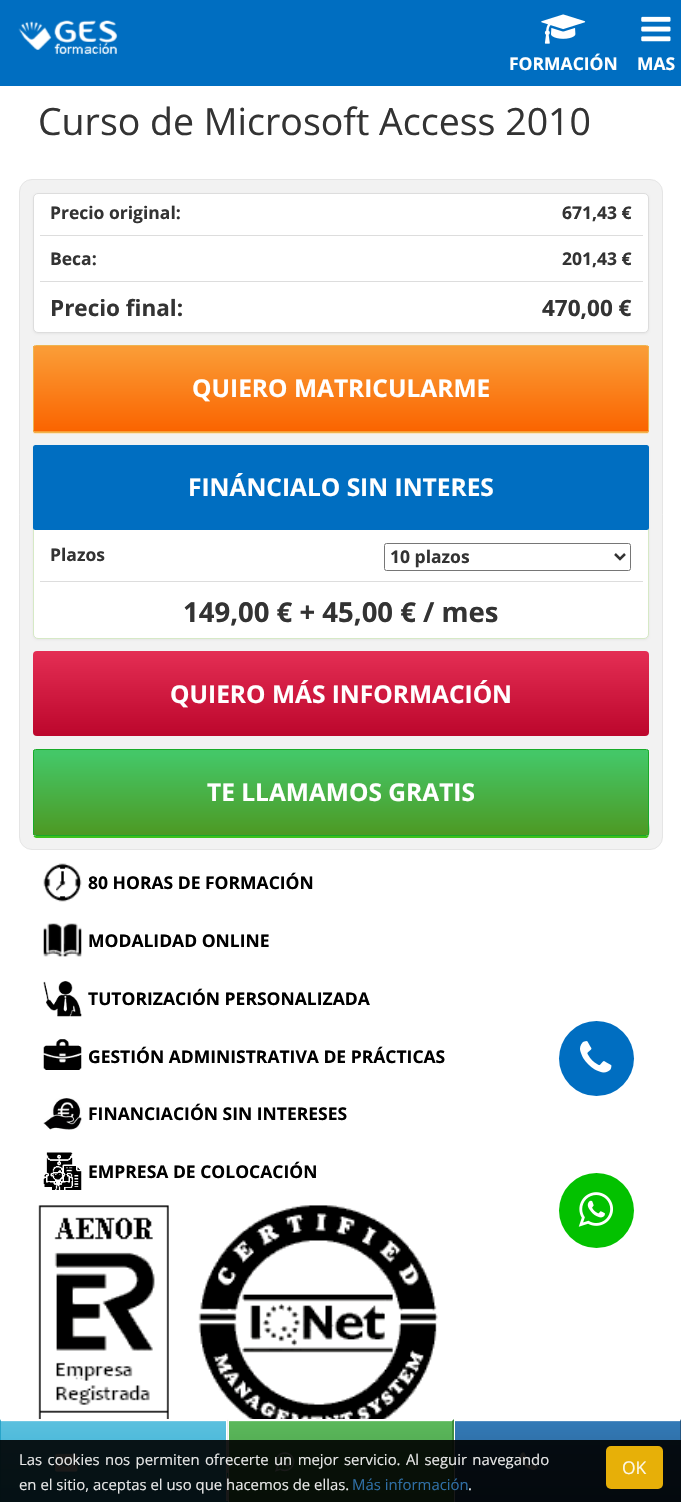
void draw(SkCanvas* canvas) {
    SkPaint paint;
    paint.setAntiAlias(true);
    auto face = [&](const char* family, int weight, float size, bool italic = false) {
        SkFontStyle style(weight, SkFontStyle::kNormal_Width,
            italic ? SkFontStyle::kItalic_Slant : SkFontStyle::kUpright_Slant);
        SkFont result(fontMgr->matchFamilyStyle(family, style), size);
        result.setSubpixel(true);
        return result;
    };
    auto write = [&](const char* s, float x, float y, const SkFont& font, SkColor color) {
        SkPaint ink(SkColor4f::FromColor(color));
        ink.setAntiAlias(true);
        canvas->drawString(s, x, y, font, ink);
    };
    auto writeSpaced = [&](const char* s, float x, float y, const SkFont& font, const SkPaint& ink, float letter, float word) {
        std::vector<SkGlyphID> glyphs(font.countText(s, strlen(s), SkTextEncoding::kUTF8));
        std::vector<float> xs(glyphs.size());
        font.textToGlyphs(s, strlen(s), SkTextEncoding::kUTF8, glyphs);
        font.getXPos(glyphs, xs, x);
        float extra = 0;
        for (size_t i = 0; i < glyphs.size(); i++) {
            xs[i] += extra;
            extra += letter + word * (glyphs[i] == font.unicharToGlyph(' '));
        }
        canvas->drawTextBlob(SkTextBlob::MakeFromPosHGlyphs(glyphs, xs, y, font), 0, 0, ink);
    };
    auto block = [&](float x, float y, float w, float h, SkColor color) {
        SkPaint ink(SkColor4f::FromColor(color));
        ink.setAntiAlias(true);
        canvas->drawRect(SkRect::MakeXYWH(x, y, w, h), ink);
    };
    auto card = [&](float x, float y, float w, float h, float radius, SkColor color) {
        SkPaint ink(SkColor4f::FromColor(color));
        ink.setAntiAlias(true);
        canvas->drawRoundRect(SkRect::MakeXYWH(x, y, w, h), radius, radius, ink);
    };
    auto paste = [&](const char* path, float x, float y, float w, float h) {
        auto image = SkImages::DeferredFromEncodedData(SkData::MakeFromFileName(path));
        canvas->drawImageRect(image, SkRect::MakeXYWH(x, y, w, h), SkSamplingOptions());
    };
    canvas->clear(SK_ColorWHITE);
    block(0, 0, 681, 86, SkColorSetRGB(0, 110, 193));
    paste("pic1.png", 18, 20, 100, 34);
    paste("pic2.png", 541, 14, 45, 30);
    auto kFont1 = face("Open Sans", 700, 17.5f);
    write("FORMACIÓN", 509, 70, kFont1, SK_ColorWHITE);
    paste("pic3.png", 641, 16, 30, 26);
    write("MAS", 637, 70, kFont1, SK_ColorWHITE);
    auto kFont2 = face("Open Sans", 400, 37.5f);
    write("Curso de Microsoft Access 2010", 38, 135, kFont2, SkColorSetRGB(51, 51, 51));
    paint.setColor(SkColorSetRGB(242, 242, 242));
    canvas->drawRoundRect(SkRect::MakeXYWH(19.5f, 179.5f, 643, 670), 12.5f, 12.5f, paint);
    paint.setStyle(SkPaint::kStroke_Style);
    paint.setStrokeWidth(1);
    paint.setColor(SkColorSetRGB(229, 229, 229));
    canvas->drawRoundRect(SkRect::MakeXYWH(19.5f, 179.5f, 643, 670), 12.5f, 12.5f, paint);
    paint.setStyle(SkPaint::kFill_Style);
    paint.setColor(SkColorSetARGB(13, 0, 0, 0));
    paint.setMaskFilter(SkMaskFilter::MakeBlur(kNormal_SkBlurStyle, 1));
    canvas->drawRoundRect(SkRect::MakeXYWH(33, 194, 616, 140), 5, 5, paint);
    paint.setMaskFilter(nullptr);
    paint.setColor(SK_ColorWHITE);
    canvas->drawRoundRect(SkRect::MakeXYWH(33.5f, 193.5f, 615, 139), 4.5f, 4.5f, paint);
    paint.setStyle(SkPaint::kStroke_Style);
    paint.setColor(SkColorSetRGB(221, 221, 221));
    canvas->drawRoundRect(SkRect::MakeXYWH(33.5f, 193.5f, 615, 139), 4.5f, 4.5f, paint);
    write("Precio original:", 50, 219, kFont1, SkColorSetRGB(51, 51, 51));
    write("671,43 €", 562, 219, kFont1, SkColorSetRGB(51, 51, 51));
    write("Beca:", 50, 265, kFont1, SkColorSetRGB(51, 51, 51));
    block(40, 235, 603, 1, SkColorSetRGB(221, 221, 221));
    write("201,43 €", 562, 265, kFont1, SkColorSetRGB(51, 51, 51));
    auto kFont3 = face("Open Sans", 700, 22.5f);
    write("Precio final:", 50, 316, kFont3, SkColorSetRGB(51, 51, 51));
    block(40, 281, 603, 1, SkColorSetRGB(221, 221, 221));
    write("470,00 €", 542, 316, kFont3, SkColorSetRGB(51, 51, 51));
    paint.setStyle(SkPaint::kFill_Style);
    paint.setColor(SkColorSetRGB(252, 226, 193));
    canvas->drawPath(SkPathBuilder().moveTo(33, 432).cubicTo(33, 433, 34, 434, 36, 434).lineTo(646, 434).cubicTo(648, 434, 649, 433, 649, 432).lineTo(649, 347).lineTo(649, 416).cubicTo(649, 422, 651, 432, 646, 432).lineTo(35, 432).close().detach(), paint);
    {
        const SkColor colors[] = {SkColorSetRGB(250, 155, 53), SkColorSetRGB(250, 100, 0)};
        const float stops[] = {0.05f, 1};
        const SkPoint ends[] = {{341, 346}, {341, 431}};
        paint.setShader(SkGradientShader::MakeLinear(ends, colors, stops, 2, SkTileMode::kClamp));
        paint.setAlpha(255);
    }
    canvas->drawRect(SkRect::MakeXYWH(33, 346, 616, 85), paint);
    canvas->save();
    canvas->clipPath(SkPathBuilder().moveTo(35.5f, 345).lineTo(646.5f, 345).cubicTo(648, 345, 649, 346, 649, 347.5f).lineTo(649, 430.5f).cubicTo(649, 432, 648, 433, 646.5f, 433).lineTo(35.5f, 433).cubicTo(34, 433, 33, 432, 33, 430.5f).lineTo(33, 347.5f).cubicTo(33, 346, 34, 345, 35.5f, 345).close().detach(), true);
    {
        const SkColor colors[] = {SkColorSetRGB(250, 155, 53), SkColorSetRGB(250, 100, 0)};
        const float stops[] = {0.05f, 1};
        const SkPoint ends[] = {{341, 431}, {341, 516}};
        paint.setShader(SkGradientShader::MakeLinear(ends, colors, stops, 2, SkTileMode::kClamp));
        paint.setAlpha(255);
    }
    canvas->drawRect(SkRect::MakeXYWH(33, 431, 616, 2), paint);
    canvas->restore();
    paint.setStyle(SkPaint::kStroke_Style);
    paint.setShader(nullptr);
    paint.setColor(SkColorSetRGB(238, 180, 79));
    canvas->drawRoundRect(SkRect::MakeXYWH(33.5f, 345.5f, 615, 87), 2, 2, paint);
    auto kFont4 = face("Open Sans", 700, 24.5f);
    write("QUIERO MATRICULARME", 192, 397, kFont4, SK_ColorWHITE);
    paint.setStyle(SkPaint::kFill_Style);
    paint.setColor(SkColorSetARGB(13, 0, 0, 0));
    paint.setMaskFilter(SkMaskFilter::MakeBlur(kNormal_SkBlurStyle, 1));
    canvas->drawRoundRect(SkRect::MakeXYWH(33, 446, 616, 194), 5, 5, paint);
    paint.setMaskFilter(nullptr);
    paint.setColor(SK_ColorWHITE);
    canvas->drawRoundRect(SkRect::MakeXYWH(33.5f, 445.5f, 615, 193), 4.5f, 4.5f, paint);
    paint.setStyle(SkPaint::kStroke_Style);
    paint.setColor(SkColorSetRGB(214, 233, 198));
    canvas->drawRoundRect(SkRect::MakeXYWH(33.5f, 445.5f, 615, 193), 4.5f, 4.5f, paint);
    card(33, 445, 616, 85, 2.5f, SkColorSetRGB(0, 110, 193));
    write("FINÁNCIALO SIN INTERES", 188, 496, kFont4, SK_ColorWHITE);
    write("Plazos", 50, 561, kFont1, SkColorSetRGB(51, 51, 51));
    paint.setColor(SkColorSetRGB(118, 118, 118));
    canvas->drawRoundRect(SkRect::MakeXYWH(384.5f, 543.5f, 246, 27), 2, 2, paint);
    paint.setStrokeWidth(2.5f);
    paint.setColor(SkColorSetRGB(51, 51, 51));
    canvas->drawPath(SkPathBuilder().moveTo(615, 554).lineTo(620, 559).lineTo(625, 554).detach(), paint);
    write("10 plazos", 390, 563, kFont1, SkColorSetRGB(51, 51, 51));
    block(40, 581, 603, 1, SkColorSetRGB(221, 221, 221));
    auto kFont5 = face("Open Sans", 700, 27.5f);
    write("149,00 € + 45,00 € / mes", 183, 622, kFont5, SkColorSetRGB(51, 51, 51));
    paint.setStyle(SkPaint::kFill_Style);
    {
        const SkColor colors[] = {SkColorSetRGB(188, 6, 44), SkColorSetRGB(228, 46, 84)};
        const float stops[] = {0, 1};
        const SkPoint ends[] = {{33, 736}, {33, 651}};
        paint.setShader(SkGradientShader::MakeLinear(ends, colors, stops, 2, SkTileMode::kClamp));
        paint.setAlpha(255);
    }
    canvas->drawRoundRect(SkRect::MakeXYWH(33, 651, 616, 85), 4, 4, paint);
    write("QUIERO MÁS INFORMACIÓN", 170, 703, kFont4, SK_ColorWHITE);
    paint.setShader(nullptr);
    paint.setColor(SkColorSetRGB(61, 194, 27));
    canvas->drawPath(SkPathBuilder().moveTo(33, 835).lineTo(34, 837).lineTo(36, 838).lineTo(646, 838).cubicTo(651, 838, 649, 827, 649, 822).lineTo(649, 751).lineTo(649, 834).cubicTo(649, 835, 648, 836, 646, 836).lineTo(35, 836).cubicTo(34, 836, 33, 836, 33, 835).close().detach(), paint);
    canvas->save();
    canvas->clipPath(SkPathBuilder().moveTo(35.5f, 749).lineTo(646.5f, 749).cubicTo(648, 749, 649, 750, 649, 751.5f).lineTo(649, 833.5f).cubicTo(649, 835, 648, 836, 646.5f, 836).lineTo(35.5f, 836).cubicTo(34, 836, 33, 835, 33, 833.5f).lineTo(33, 751.5f).cubicTo(33, 750, 34, 749, 35.5f, 749).close().detach(), true);
    {
        const SkColor colors[] = {SkColorSetRGB(68, 199, 103), SkColorSetRGB(77, 153, 35)};
        const float stops[] = {0.05f, 1};
        const SkPoint ends[] = {{341, 750}, {341, 835}};
        paint.setShader(SkGradientShader::MakeLinear(ends, colors, stops, 2, SkTileMode::kClamp));
        paint.setAlpha(255);
    }
    canvas->drawRect(SkRect::MakeXYWH(33, 750, 616, 85), paint);
    canvas->restore();
    paint.setStyle(SkPaint::kStroke_Style);
    paint.setStrokeWidth(1);
    paint.setShader(nullptr);
    paint.setColor(SkColorSetRGB(24, 171, 41));
    canvas->drawRoundRect(SkRect::MakeXYWH(33.5f, 749.5f, 615, 86), 2, 2, paint);
    write("TE LLAMAMOS GRATIS", 207, 801, kFont4, SK_ColorWHITE);
    paste("pic4.png", 43, 863, 39, 39);
    write("80 HORAS DE FORMACIÓN", 88, 889, kFont1, SK_ColorBLACK);
    paste("pic5.png", 43, 923, 39, 34);
    write("MODALIDAD ONLINE", 88, 947, kFont1, SK_ColorBLACK);
    paste("pic6.png", 43, 981, 39, 36);
    write("TUTORIZACIÓN PERSONALIZADA", 88, 1005, kFont1, SK_ColorBLACK);
    paste("pic7.png", 43, 1039, 39, 31);
    write("GESTIÓN ADMINISTRATIVA DE PRÁCTICAS", 88, 1063, kFont1, SK_ColorBLACK);
    paste("pic8.png", 43, 1098, 39, 32);
    write("FINANCIACIÓN SIN INTERESES", 88, 1120, kFont1, SK_ColorBLACK);
    paste("pic9.png", 43, 1152, 39, 38);
    write("EMPRESA DE COLOCACIÓN", 88, 1178, kFont1, SK_ColorBLACK);
    paste("pic10.png", 38, 1205, 400, 214);
    paint.setColor(SkColorSetRGB(211, 211, 211));
    canvas->drawRect(SkRect::MakeXYWH(38.5f, 1454.5f, 605, 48), paint);
    paste("pic11.png", 227, 1455, 1, 46);
    paint.setStyle(SkPaint::kFill_Style);
    paint.setColor(SkColorSetRGB(0, 110, 193));
    canvas->drawCircle(596.5f, 1058.5f, 37.5f, paint);
    paste("pic12.png", 580, 1041, 32, 32);
    paint.setColor(SkColorSetRGB(3, 193, 0));
    canvas->drawCircle(596.5f, 1210.5f, 37.5f, paint);
    paste("pic13.png", 578, 1192, 35, 35);
    paint.setColor(SkColorSetARGB(18, 0, 0, 0));
    paint.setMaskFilter(SkMaskFilter::MakeBlur(kNormal_SkBlurStyle, 0.5f));
    canvas->drawRect(SkRect::MakeXYWH(0, 1420, 228, 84), paint);
    paint.setMaskFilter(nullptr);
    {
        const SkColor colors[] = {SkColorSetRGB(91, 192, 222), SkColorSetRGB(42, 171, 210)};
        const float stops[] = {0, 1};
        const SkPoint ends[] = {{114, 1421}, {114, 1501}};
        paint.setShader(SkGradientShader::MakeLinear(ends, colors, stops, 2, SkTileMode::kClamp));
        paint.setAlpha(255);
    }
    canvas->drawRect(SkRect::MakeXYWH(1, 1422, 225, 79), paint);
    block(1, 1421, 225, 1, SkColorSetRGB(116, 201, 227));
    paint.setShader(nullptr);
    paint.setColor(SK_ColorWHITE);
    canvas->drawPath(SkPathBuilder().moveTo(0, 1419).lineTo(228, 1419).lineTo(226, 1421).lineTo(1, 1421).close().detach(), paint);
    block(226, 1419, 1, 83, SK_ColorWHITE);
    block(0, 1501, 228, 1, SkColorSetRGB(40, 164, 201));
    paint.setColor(SkColorSetRGB(40, 164, 201));
    canvas->drawPath(SkPathBuilder().moveTo(0, 1502).lineTo(0, 1419).lineTo(1, 1421).lineTo(1, 1501).close().detach(), paint);
    paste("pic14.png", 55, 1453, 23, 19);
    {
        const SkColor colors[] = {SkColorSetRGB(92, 184, 92), SkColorSetRGB(65, 150, 65)};
        const float stops[] = {0, 1};
        const SkPoint ends[] = {{341, 1421}, {341, 1501}};
        paint.setShader(SkGradientShader::MakeLinear(ends, colors, stops, 2, SkTileMode::kClamp));
        paint.setAlpha(255);
    }
    canvas->drawRect(SkRect::MakeXYWH(229, 1422, 223, 79), paint);
    block(229, 1421, 224, 1, SkColorSetRGB(116, 195, 116));
    paint.setShader(nullptr);
    paint.setColor(SkColorSetRGB(62, 143, 62));
    canvas->drawPath(SkPathBuilder().moveTo(454, 1419).lineTo(454, 1502).lineTo(452, 1501).lineTo(452, 1421).close().detach(), paint);
    block(228, 1501, 226, 1, SkColorSetRGB(62, 143, 62));
    block(228, 1454, 1, 48, SK_ColorWHITE);
    paste("pic15.png", 275, 1452, 20, 20);
    {
        const SkColor colors[] = {SkColorSetRGB(51, 122, 183), SkColorSetRGB(38, 90, 136)};
        const float stops[] = {0, 1};
        const SkPoint ends[] = {{568, 1421}, {568, 1501}};
        paint.setShader(SkGradientShader::MakeLinear(ends, colors, stops, 2, SkTileMode::kClamp));
        paint.setAlpha(255);
    }
    canvas->drawRect(SkRect::MakeXYWH(455, 1422, 225, 79), paint);
    block(455, 1421, 225, 1, SkColorSetRGB(82, 142, 194));
    paint.setShader(nullptr);
    paint.setColor(SkColorSetRGB(36, 85, 128));
    canvas->drawPath(SkPathBuilder().moveTo(681, 1419).lineTo(681, 1502).lineTo(680, 1501).lineTo(680, 1421).close().detach(), paint);
    block(454, 1501, 227, 1, SkColorSetRGB(36, 85, 128));
    block(454, 1454, 1, 48, SK_ColorWHITE);
    paste("pic16.png", 520, 1452, 18, 18);
    block(0, 1440, 681, 62, SkColorSetARGB(230, 0, 0, 0));
    auto kFont6 = face("Open Sans", 400, 14.9f);
    paint.setColor(SkColorSetRGB(231, 231, 231));
    writeSpaced("Las cookies nos permiten ofrecerte un mejor servicio. Al seguir navegando", 19, 1465, kFont6, paint, 0, 1.5f);
    write("en el sitio, aceptas el uso que hacemos de ellas.", 19, 1490, kFont6, SkColorSetRGB(231, 231, 231));
    write("Más información", 352, 1490, kFont6, SkColorSetRGB(47, 111, 166));
    write(".", 468, 1490, kFont6, SkColorSetRGB(234, 239, 244));
    card(606, 1446, 57, 43, 5, SkColorSetARGB(230, 255, 193, 7));
    auto kFont7 = face("Open Sans", 400, 17.5f);
    write("OK", 622, 1474, kFont7, SkColorSetRGB(252, 247, 230));
}
